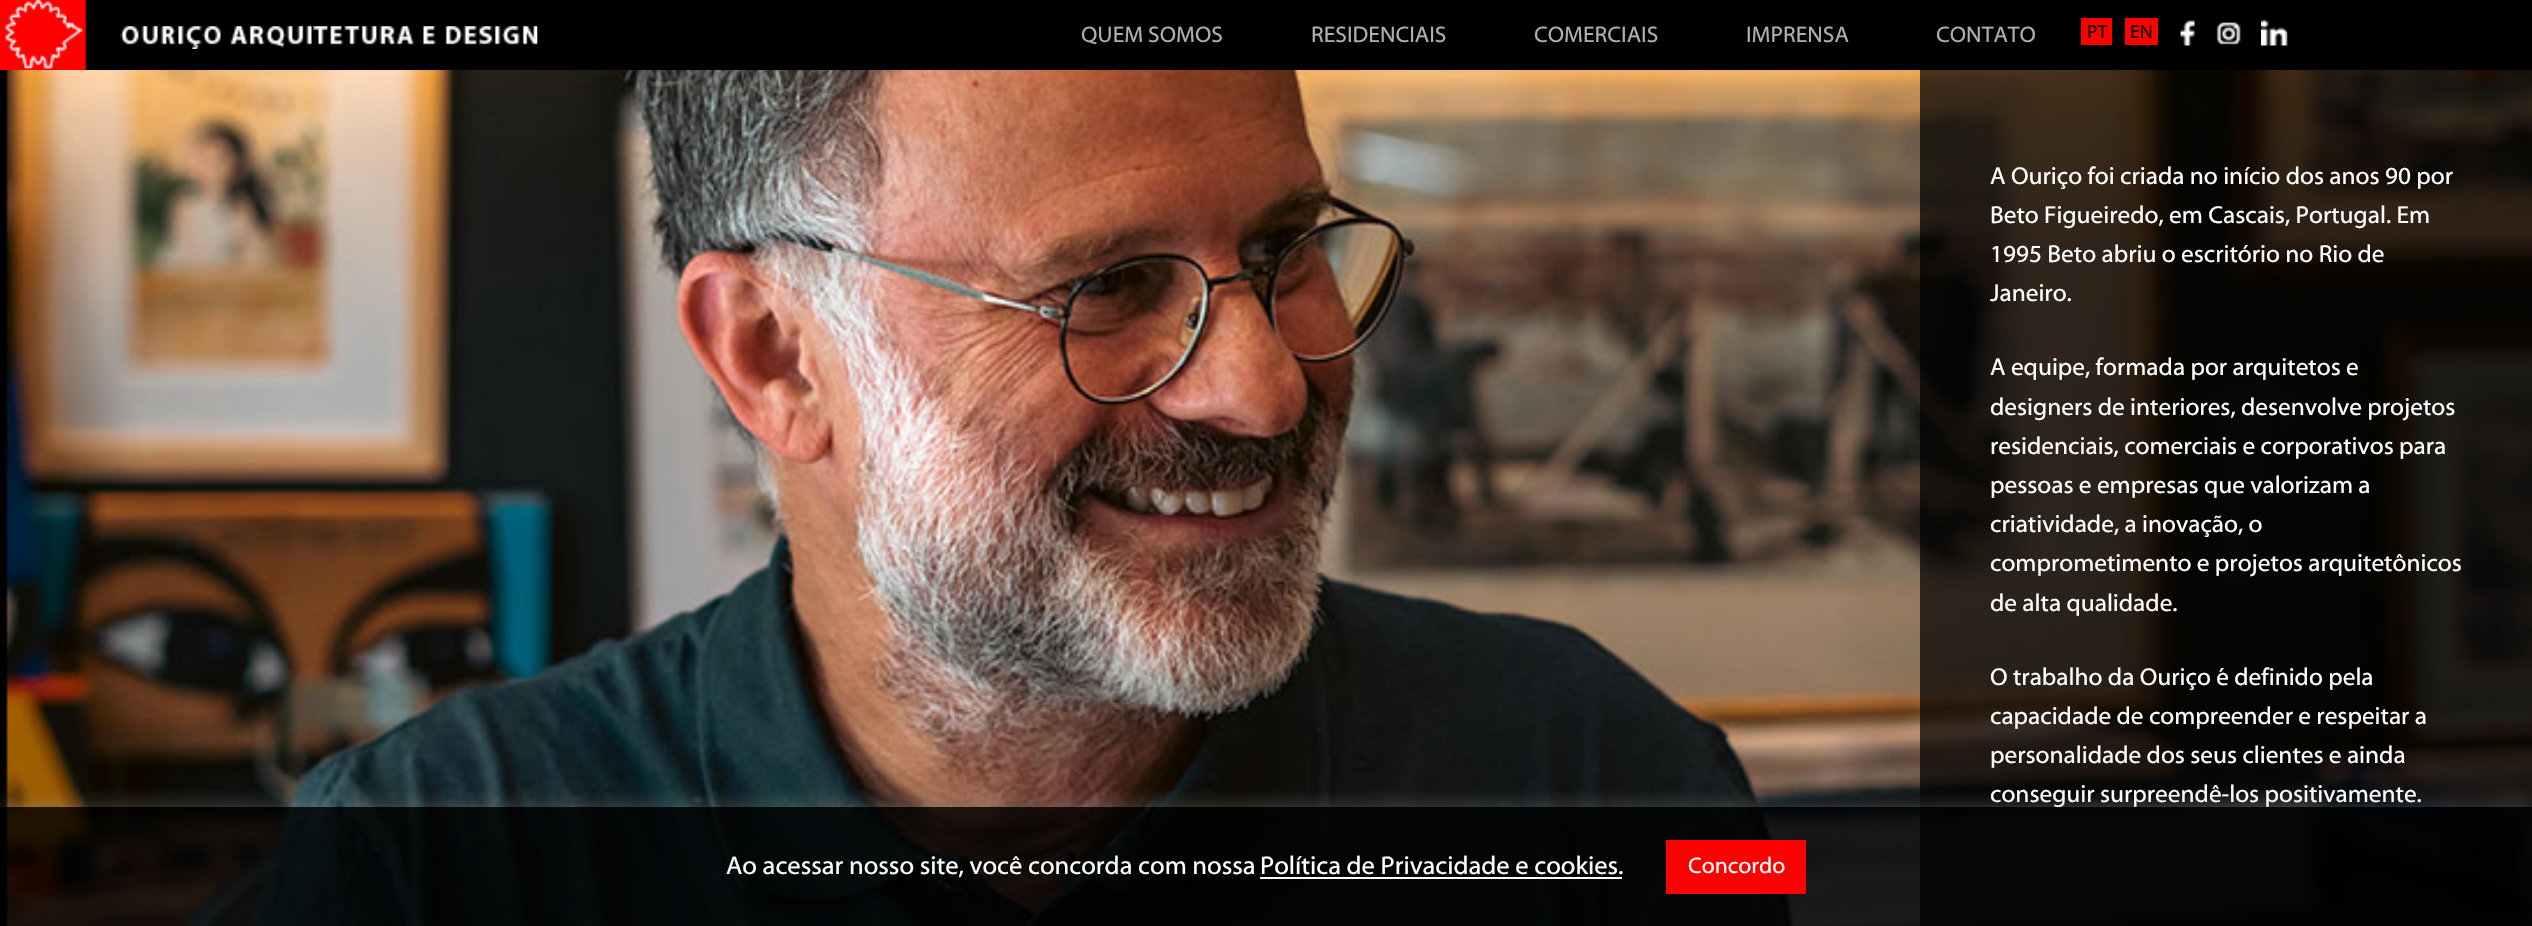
void draw(SkCanvas* canvas) {
    SkPaint paint;
    paint.setAntiAlias(true);
    auto face = [&](const char* family, int weight, float size, bool italic = false) {
        SkFontStyle style(weight, SkFontStyle::kNormal_Width,
            italic ? SkFontStyle::kItalic_Slant : SkFontStyle::kUpright_Slant);
        SkFont result(fontMgr->matchFamilyStyle(family, style), size);
        result.setSubpixel(true);
        return result;
    };
    auto write = [&](const char* s, float x, float y, const SkFont& font, SkColor color) {
        SkPaint ink(SkColor4f::FromColor(color));
        ink.setAntiAlias(true);
        canvas->drawString(s, x, y, font, ink);
    };
    auto block = [&](float x, float y, float w, float h, SkColor color) {
        SkPaint ink(SkColor4f::FromColor(color));
        ink.setAntiAlias(true);
        canvas->drawRect(SkRect::MakeXYWH(x, y, w, h), ink);
    };
    auto paste = [&](const char* path, float x, float y, float w, float h) {
        auto image = SkImages::DeferredFromEncodedData(SkData::MakeFromFileName(path));
        canvas->drawImageRect(image, SkRect::MakeXYWH(x, y, w, h), SkSamplingOptions());
    };
    canvas->clear(SK_ColorWHITE);
    block(85, 0, 2447, 70, SK_ColorBLACK);
    paste("pic1.png", 0, 0, 86, 70);
    paste("pic2.png", 120, 26, 418, 23);
    auto kFont1 = face("Myriad", 400, 22.75f);
    write("QUEM SOMOS", 1081, 42, kFont1, SkColorSetRGB(174, 174, 174));
    write("RESIDENCIAIS", 1311, 42, kFont1, SkColorSetRGB(174, 174, 174));
    write("COMERCIAIS", 1534, 42, kFont1, SkColorSetRGB(174, 174, 174));
    write("IMPRENSA", 1746, 42, kFont1, SkColorSetRGB(174, 174, 174));
    write("CONTATO", 1936, 42, kFont1, SkColorSetRGB(174, 174, 174));
    block(2081, 18, 31, 27, SkColorSetRGB(255, 0, 0));
    auto kFont2 = face("Myriad", 400, 19);
    write("PT", 2087, 38, kFont2, SK_ColorBLACK);
    block(2125, 18, 33, 27, SkColorSetRGB(255, 0, 0));
    write("EN", 2130, 38, kFont2, SK_ColorBLACK);
    paste("pic3.png", 2180, 20, 15, 26);
    paste("pic4.png", 2216, 22, 25, 23);
    paste("pic5.png", 2261, 19, 27, 27);
    paste("pic6.png", 0, 70, 2532, 856);
    block(1920, 70, 612, 856, SkColorSetARGB(179, 0, 0, 0));
    auto kFont3 = face("Myriad", 400, 24.5f);
    write("A Ouriço foi criada no início dos anos 90 por", 1990, 184, kFont3, SK_ColorWHITE);
    write("Beto Figueiredo, em Cascais, Portugal. Em", 1990, 223, kFont3, SK_ColorWHITE);
    write("1995 Beto abriu o escritório no Rio de", 1990, 262, kFont3, SK_ColorWHITE);
    write("Janeiro.", 1990, 301, kFont3, SK_ColorWHITE);
    write("A equipe, formada por arquitetos e", 1990, 375, kFont3, SK_ColorWHITE);
    write("designers de interiores, desenvolve projetos", 1990, 415, kFont3, SK_ColorWHITE);
    write("residenciais, comerciais e corporativos para", 1990, 454, kFont3, SK_ColorWHITE);
    write("pessoas e empresas que valorizam a", 1990, 493, kFont3, SK_ColorWHITE);
    write("criatividade, a inovação, o", 1990, 532, kFont3, SK_ColorWHITE);
    write("comprometimento e projetos arquitetônicos", 1990, 571, kFont3, SK_ColorWHITE);
    write("de alta qualidade.", 1990, 611, kFont3, SK_ColorWHITE);
    write("O trabalho da Ouriço é definido pela", 1990, 685, kFont3, SK_ColorWHITE);
    write("capacidade de compreender e respeitar a", 1990, 724, kFont3, SK_ColorWHITE);
    write("personalidade dos seus clientes e ainda", 1990, 763, kFont3, SK_ColorWHITE);
    write("conseguir surpreendê-los positivamente.", 1990, 802, kFont3, SK_ColorWHITE);
    canvas->save();
    canvas->clipRect(SkRect::MakeXYWH(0, 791, 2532, 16));
    paint.setColor(SkColorSetARGB(77, 172, 171, 171));
    paint.setMaskFilter(SkMaskFilter::MakeBlur(kNormal_SkBlurStyle, 9));
    canvas->drawRect(SkRect::MakeXYWH(0, 805, 2532, 121), paint);
    paint.setMaskFilter(nullptr);
    canvas->restore();
    block(0, 807, 2532, 119, SkColorSetARGB(204, 0, 0, 0));
    auto kFont4 = face("Myriad", 400, 25.7f);
    write("Ao acessar nosso site, você concorda com nossa", 726, 874, kFont4, SK_ColorWHITE);
    write("Política de Privacidade e cookies.", 1260, 874, kFont4, SK_ColorWHITE);
    block(1260, 877, 362, 2, SK_ColorWHITE);
    block(1666, 840, 140, 54, SkColorSetRGB(255, 0, 0));
    write("Concordo", 1688, 873, kFont1, SK_ColorWHITE);
}
